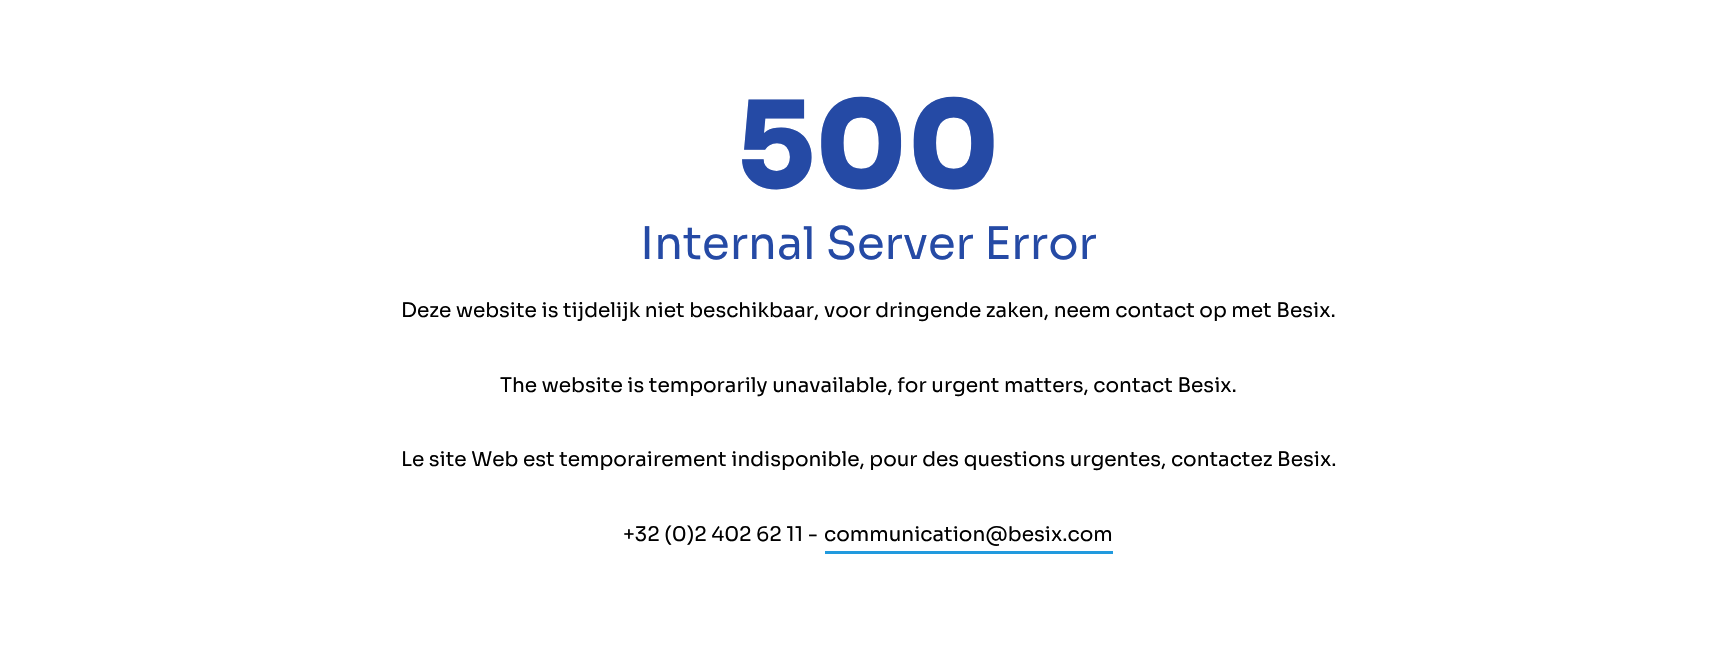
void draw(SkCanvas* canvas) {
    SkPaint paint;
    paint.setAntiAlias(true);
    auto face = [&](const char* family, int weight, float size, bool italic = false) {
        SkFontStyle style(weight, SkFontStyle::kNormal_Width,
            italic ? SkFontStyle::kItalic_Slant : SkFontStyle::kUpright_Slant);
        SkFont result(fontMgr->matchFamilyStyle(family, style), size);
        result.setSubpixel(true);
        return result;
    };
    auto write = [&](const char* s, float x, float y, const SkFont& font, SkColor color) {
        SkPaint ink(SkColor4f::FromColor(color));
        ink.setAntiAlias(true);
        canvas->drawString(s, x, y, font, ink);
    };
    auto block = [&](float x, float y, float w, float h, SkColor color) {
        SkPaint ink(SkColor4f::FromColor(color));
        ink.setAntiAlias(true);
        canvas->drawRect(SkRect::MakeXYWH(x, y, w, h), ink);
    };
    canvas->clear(SK_ColorWHITE);
    auto kFont1 = face("Sora", 800, 120);
    write("500", 737, 187, kFont1, SkColorSetRGB(37, 74, 165));
    auto kFont2 = face("Sora", 400, 45);
    write("Internal Server Error", 640, 259, kFont2, SkColorSetRGB(37, 74, 165));
    auto kFont3 = face("Sora", 400, 20.1f);
    write("Deze website is tijdelijk niet beschikbaar, voor dringende zaken, neem contact op met Besix.", 401, 317, kFont3, SK_ColorBLACK);
    write("The website is temporarily unavailable, for urgent matters, contact Besix.", 500, 392, kFont3, SK_ColorBLACK);
    write("Le site Web est temporairement indisponible, pour des questions urgentes, contactez Besix.", 401, 466, kFont3, SK_ColorBLACK);
    write("+32 (0)2 402 62 11 -", 623, 541, kFont3, SK_ColorBLACK);
    write("communication@besix.com", 824, 541, kFont3, SK_ColorBLACK);
    block(825, 551, 288, 3, SkColorSetRGB(33, 154, 222));
}
